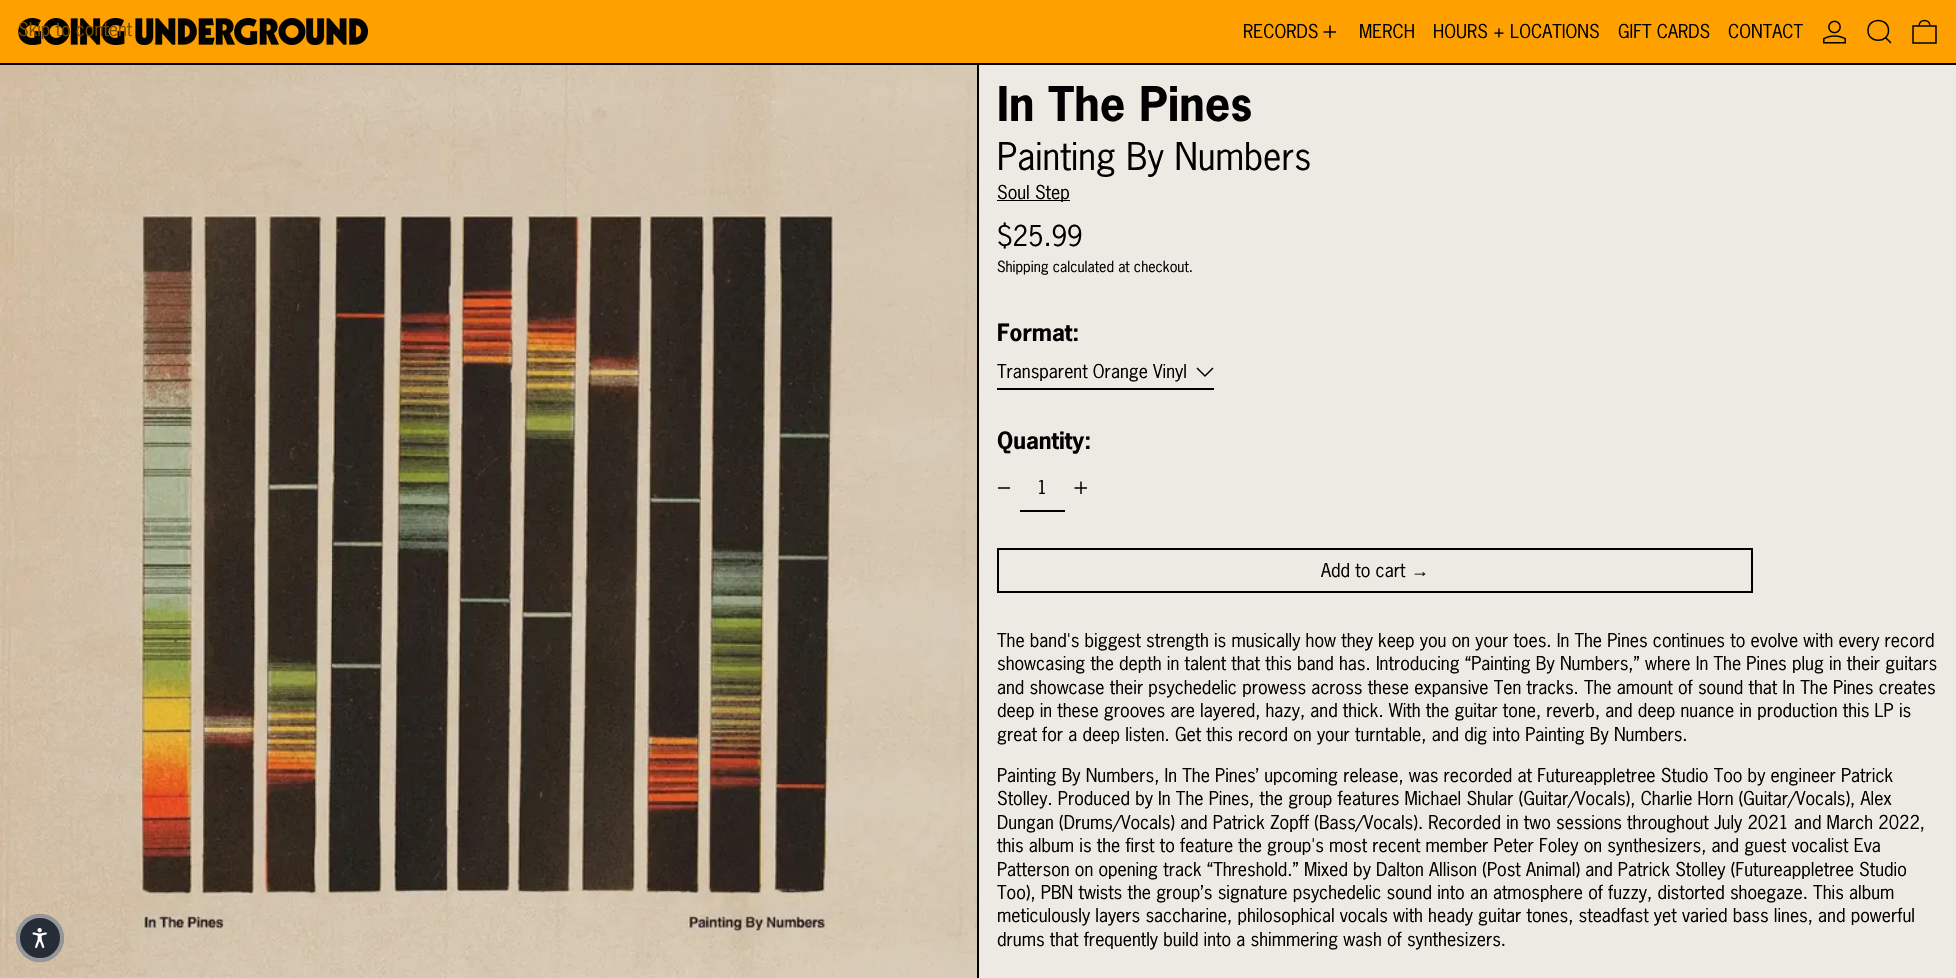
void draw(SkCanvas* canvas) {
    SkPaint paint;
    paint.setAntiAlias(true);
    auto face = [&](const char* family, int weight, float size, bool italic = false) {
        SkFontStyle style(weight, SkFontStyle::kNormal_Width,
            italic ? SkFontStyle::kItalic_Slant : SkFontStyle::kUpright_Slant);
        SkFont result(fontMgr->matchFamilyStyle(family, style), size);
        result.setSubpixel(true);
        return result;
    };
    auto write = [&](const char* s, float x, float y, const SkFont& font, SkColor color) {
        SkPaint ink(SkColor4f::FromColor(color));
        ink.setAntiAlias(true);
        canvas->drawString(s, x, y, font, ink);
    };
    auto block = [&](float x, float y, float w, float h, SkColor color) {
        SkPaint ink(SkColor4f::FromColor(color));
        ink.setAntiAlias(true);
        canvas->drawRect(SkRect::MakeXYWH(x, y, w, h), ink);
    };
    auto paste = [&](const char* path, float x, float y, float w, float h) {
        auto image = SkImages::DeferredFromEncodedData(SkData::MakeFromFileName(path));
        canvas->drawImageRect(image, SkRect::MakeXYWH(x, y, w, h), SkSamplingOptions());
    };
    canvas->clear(SK_ColorBLACK);
    block(0, 0, 1956, 63, SkColorSetRGB(254, 160, 0));
    paste("pic1.png", 18, 18, 350, 27);
    auto kFont1 = face("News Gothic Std", 400, 18);
    write("Skip to content", 18, 36, kFont1, SkColorSetRGB(121, 76, 0));
    write("RECORDS", 1243, 38, kFont1, SK_ColorBLACK);
    paint.setStyle(SkPaint::kStroke_Style);
    paint.setStrokeWidth(1.5f);
    paint.setColor(SK_ColorBLACK);
    canvas->drawPath(SkPathBuilder().moveTo(1330, 25.5f).lineTo(1330, 38).moveTo(1323.5f, 32).lineTo(1336, 32).detach(), paint);
    write("MERCH", 1359, 38, kFont1, SK_ColorBLACK);
    write("HOURS + LOCATIONS", 1433, 38, kFont1, SK_ColorBLACK);
    write("GIFT CARDS", 1618, 38, kFont1, SK_ColorBLACK);
    write("CONTACT", 1728, 38, kFont1, SK_ColorBLACK);
    paste("pic2.png", 1823, 20, 23, 24);
    canvas->drawPath(SkPathBuilder().moveTo(1868, 30.5f).cubicTo(1868, 43.5f, 1888.5f, 43.5f, 1888.5f, 30.5f).cubicTo(1888.5f, 17, 1868, 17, 1868, 30.5f).close().moveTo(1885.5f, 37.5f).lineTo(1891, 43).detach(), paint);
    canvas->drawPath(SkPathBuilder().moveTo(1913, 26).lineTo(1936, 26).lineTo(1936, 43).lineTo(1913, 43).close().moveTo(1930, 26).cubicTo(1930, 18.5f, 1919, 18.5f, 1919, 26).detach(), paint);
    paste("pic4.png", 0, 65, 977, 913);
    paint.setStyle(SkPaint::kFill_Style);
    paint.setColor(SkColorSetRGB(39, 45, 54));
    canvas->drawCircle(40, 938, 24, paint);
    paint.setStyle(SkPaint::kStroke_Style);
    paint.setStrokeWidth(4);
    paint.setColor(SkColorSetARGB(128, 255, 255, 255));
    canvas->drawCircle(40, 938, 22, paint);
    paste("pic3.png", 32, 928, 15, 20);
    block(979, 65, 977, 913, SkColorSetRGB(237, 234, 227));
    auto kFont2 = face("News Gothic Std", 700, 45);
    write("In The Pines", 997, 121, kFont2, SK_ColorBLACK);
    auto kFont3 = face("News Gothic Std", 400, 36);
    write("Painting By Numbers", 997, 170, kFont3, SK_ColorBLACK);
    block(997, 200, 73, 1, SK_ColorBLACK);
    write("Soul Step", 997, 199, kFont1, SK_ColorBLACK);
    auto kFont4 = face("News Gothic Std", 400, 27);
    write("$25.99", 997, 246, kFont4, SK_ColorBLACK);
    auto kFont5 = face("News Gothic Std", 400, 14.4f);
    write("Shipping calculated at checkout.", 997, 272, kFont5, SK_ColorBLACK);
    auto kFont6 = face("News Gothic Std", 700, 22.5f);
    write("Format:", 997, 341, kFont6, SK_ColorBLACK);
    block(997, 388, 217, 2, SK_ColorBLACK);
    write("Transparent Orange Vinyl", 997, 378, kFont1, SK_ColorBLACK);
    paint.setStrokeWidth(1.5f);
    paint.setColor(SK_ColorBLACK);
    canvas->drawPath(SkPathBuilder().moveTo(1197, 368).lineTo(1205, 376).lineTo(1213, 368).detach(), paint);
    write("Quantity:", 997, 449, kFont6, SK_ColorBLACK);
    block(998, 487, 12, 2, SkColorSetRGB(59, 59, 57));
    block(1020, 510, 45, 2, SK_ColorBLACK);
    write("1", 1037, 494, kFont1, SK_ColorBLACK);
    canvas->drawPath(SkPathBuilder().moveTo(1081, 481.5f).lineTo(1081, 494).moveTo(1074.5f, 488).lineTo(1087, 488).detach(), paint);
    paint.setStrokeWidth(2);
    canvas->drawRect(SkRect::MakeXYWH(998, 549, 754, 43), paint);
    write("Add to cart", 1321, 577, kFont1, SK_ColorBLACK);
    auto kFont7 = face("Liberation Sans", 400, 18);
    write("→", 1411, 577, kFont7, SK_ColorBLACK);
    write("The band's biggest strength is musically how they keep you on your toes. In The Pines continues to evolve with every record", 997, 647, kFont1, SK_ColorBLACK);
    write("showcasing the depth in talent that this band has. Introducing “Painting By Numbers,” where In The Pines plug in their guitars", 997, 670, kFont1, SK_ColorBLACK);
    write("and showcase their psychedelic prowess across these expansive Ten tracks. The amount of sound that In The Pines creates", 997, 694, kFont1, SK_ColorBLACK);
    write("deep in these grooves are layered, hazy, and thick. With the guitar tone, reverb, and deep nuance in production this LP is", 997, 717, kFont1, SK_ColorBLACK);
    write("great for a deep listen. Get this record on your turntable, and dig into Painting By Numbers.", 997, 741, kFont1, SK_ColorBLACK);
    write("Painting By Numbers, In The Pines’ upcoming release, was recorded at Futureappletree Studio Too by engineer Patrick", 997, 782, kFont1, SK_ColorBLACK);
    write("Stolley. Produced by In The Pines, the group features Michael Shular (Guitar/Vocals), Charlie Horn (Guitar/Vocals), Alex", 997, 805, kFont1, SK_ColorBLACK);
    write("Dungan (Drums/Vocals) and Patrick Zopff (Bass/Vocals). Recorded in two sessions throughout July 2021 and March 2022,", 997, 829, kFont1, SK_ColorBLACK);
    write("this album is the first to feature the group's most recent member Peter Foley on synthesizers, and guest vocalist Eva", 997, 852, kFont1, SK_ColorBLACK);
    write("Patterson on opening track “Threshold.” Mixed by Dalton Allison (Post Animal) and Patrick Stolley (Futureappletree Studio", 997, 876, kFont1, SK_ColorBLACK);
    write("Too), PBN twists the group’s signature psychedelic sound into an atmosphere of fuzzy, distorted shoegaze. This album", 997, 899, kFont1, SK_ColorBLACK);
    write("meticulously layers saccharine, philosophical vocals with heady guitar tones, steadfast yet varied bass lines, and powerful", 997, 922, kFont1, SK_ColorBLACK);
    write("drums that frequently build into a shimmering wash of synthesizers.", 997, 946, kFont1, SK_ColorBLACK);
}
